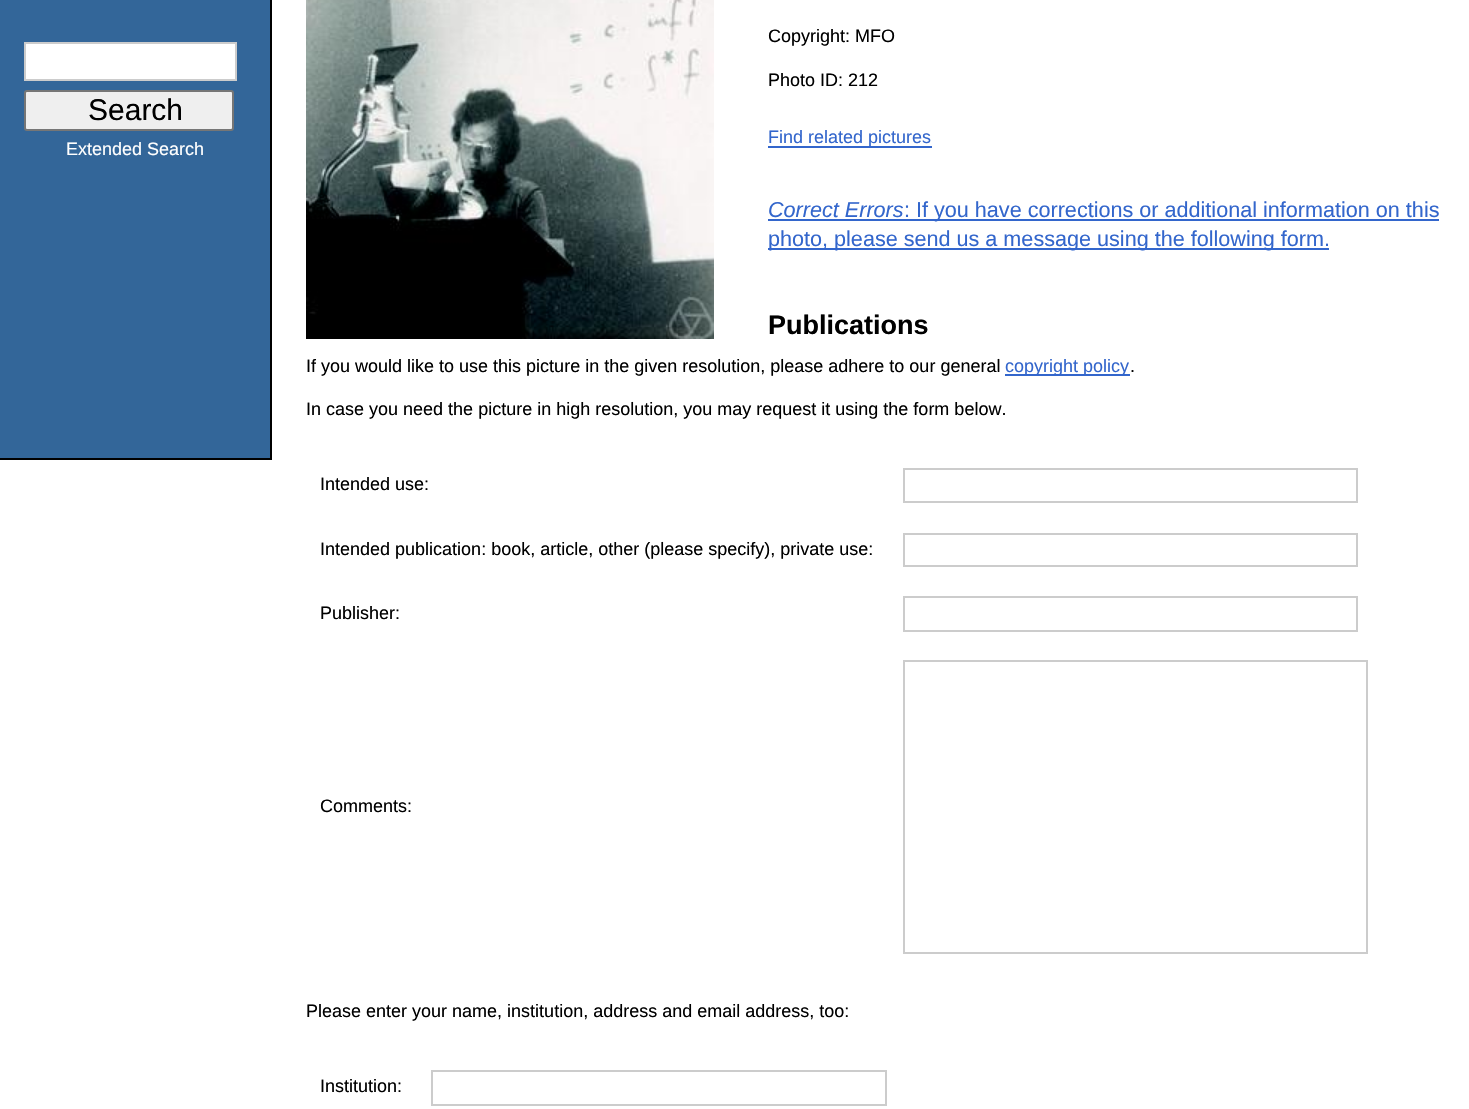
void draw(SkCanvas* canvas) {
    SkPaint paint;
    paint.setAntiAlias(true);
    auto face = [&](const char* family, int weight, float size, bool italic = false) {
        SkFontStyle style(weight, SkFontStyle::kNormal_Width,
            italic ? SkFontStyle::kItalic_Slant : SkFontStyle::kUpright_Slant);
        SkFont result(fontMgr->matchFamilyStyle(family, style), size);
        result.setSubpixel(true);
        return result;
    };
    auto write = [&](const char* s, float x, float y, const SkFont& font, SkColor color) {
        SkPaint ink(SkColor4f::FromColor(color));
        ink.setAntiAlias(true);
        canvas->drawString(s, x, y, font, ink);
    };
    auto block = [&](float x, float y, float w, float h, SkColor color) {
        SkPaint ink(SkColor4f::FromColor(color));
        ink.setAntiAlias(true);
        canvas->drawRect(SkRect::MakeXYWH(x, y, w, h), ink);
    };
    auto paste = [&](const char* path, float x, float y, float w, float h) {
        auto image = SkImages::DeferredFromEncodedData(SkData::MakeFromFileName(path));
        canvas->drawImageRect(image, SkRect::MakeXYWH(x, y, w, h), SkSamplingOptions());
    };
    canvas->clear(SK_ColorWHITE);
    block(0, 0, 270, 458, SkColorSetRGB(51, 102, 153));
    block(270, 0, 2, 459, SK_ColorBLACK);
    block(0, 458, 272, 2, SK_ColorBLACK);
    paint.setColor(SK_ColorWHITE);
    canvas->drawRect(SkRect::MakeXYWH(25, 43, 211, 37), paint);
    paint.setStyle(SkPaint::kStroke_Style);
    paint.setStrokeWidth(2);
    paint.setColor(SkColorSetRGB(204, 204, 204));
    canvas->drawRect(SkRect::MakeXYWH(25, 43, 211, 37), paint);
    paint.setStyle(SkPaint::kFill_Style);
    paint.setColor(SkColorSetRGB(239, 239, 239));
    canvas->drawRoundRect(SkRect::MakeXYWH(25, 91, 208, 39), 2, 2, paint);
    paint.setStyle(SkPaint::kStroke_Style);
    paint.setColor(SkColorSetRGB(118, 118, 118));
    canvas->drawRoundRect(SkRect::MakeXYWH(25, 91, 208, 39), 2, 2, paint);
    auto kFont1 = face("Liberation Sans", 400, 30);
    write("Search", 88, 120, kFont1, SK_ColorBLACK);
    auto kFont2 = face("Liberation Sans", 400, 18);
    write("Extended Search", 66, 155, kFont2, SK_ColorWHITE);
    paste("pic1.png", 306, 0, 408, 339);
    write("Copyright: MFO", 768, 42, kFont2, SK_ColorBLACK);
    write("Photo ID: 212", 768, 86, kFont2, SK_ColorBLACK);
    block(768, 146, 164, 2, SkColorSetRGB(51, 102, 204));
    write("Find related pictures", 768, 143, kFont2, SkColorSetRGB(51, 102, 204));
    auto kFont3 = face("Liberation Sans", 400, 21.6f, true);
    write("Correct Errors", 768, 217, kFont3, SkColorSetRGB(51, 102, 204));
    block(768, 219, 671, 2, SkColorSetRGB(51, 102, 204));
    auto kFont4 = face("Liberation Sans", 400, 21.6f);
    write(": If you have corrections or additional information on this", 904, 217, kFont4, SkColorSetRGB(51, 102, 204));
    block(768, 248, 561, 2, SkColorSetRGB(51, 102, 204));
    write("photo, please send us a message using the following form.", 768, 246, kFont4, SkColorSetRGB(51, 102, 204));
    auto kFont5 = face("Liberation Sans", 700, 27);
    write("Publications", 768, 334, kFont5, SK_ColorBLACK);
    write("If you would like to use this picture in the given resolution, please adhere to our general", 306, 372, kFont2, SK_ColorBLACK);
    block(1005, 374, 125, 2, SkColorSetRGB(51, 102, 204));
    write("copyright policy", 1005, 372, kFont2, SkColorSetRGB(51, 102, 204));
    write(".", 1130, 372, kFont2, SK_ColorBLACK);
    write("In case you need the picture in high resolution, you may request it using the form below.", 306, 415, kFont2, SK_ColorBLACK);
    write("Intended use:", 320, 490, kFont2, SK_ColorBLACK);
    paint.setColor(SkColorSetRGB(204, 204, 204));
    canvas->drawRect(SkRect::MakeXYWH(904, 469, 453, 33), paint);
    write("Intended publication: book, article, other (please specify), private use:", 320, 555, kFont2, SK_ColorBLACK);
    canvas->drawRect(SkRect::MakeXYWH(904, 534, 453, 32), paint);
    write("Publisher:", 320, 619, kFont2, SK_ColorBLACK);
    canvas->drawRect(SkRect::MakeXYWH(904, 597, 453, 34), paint);
    write("Comments:", 320, 812, kFont2, SK_ColorBLACK);
    canvas->drawRect(SkRect::MakeXYWH(904, 661, 463, 292), paint);
    write("Please enter your name, institution, address and email address, too:", 306, 1017, kFont2, SK_ColorBLACK);
    write("Institution:", 320, 1092, kFont2, SK_ColorBLACK);
    canvas->drawRect(SkRect::MakeXYWH(432, 1071, 454, 34), paint);
}
